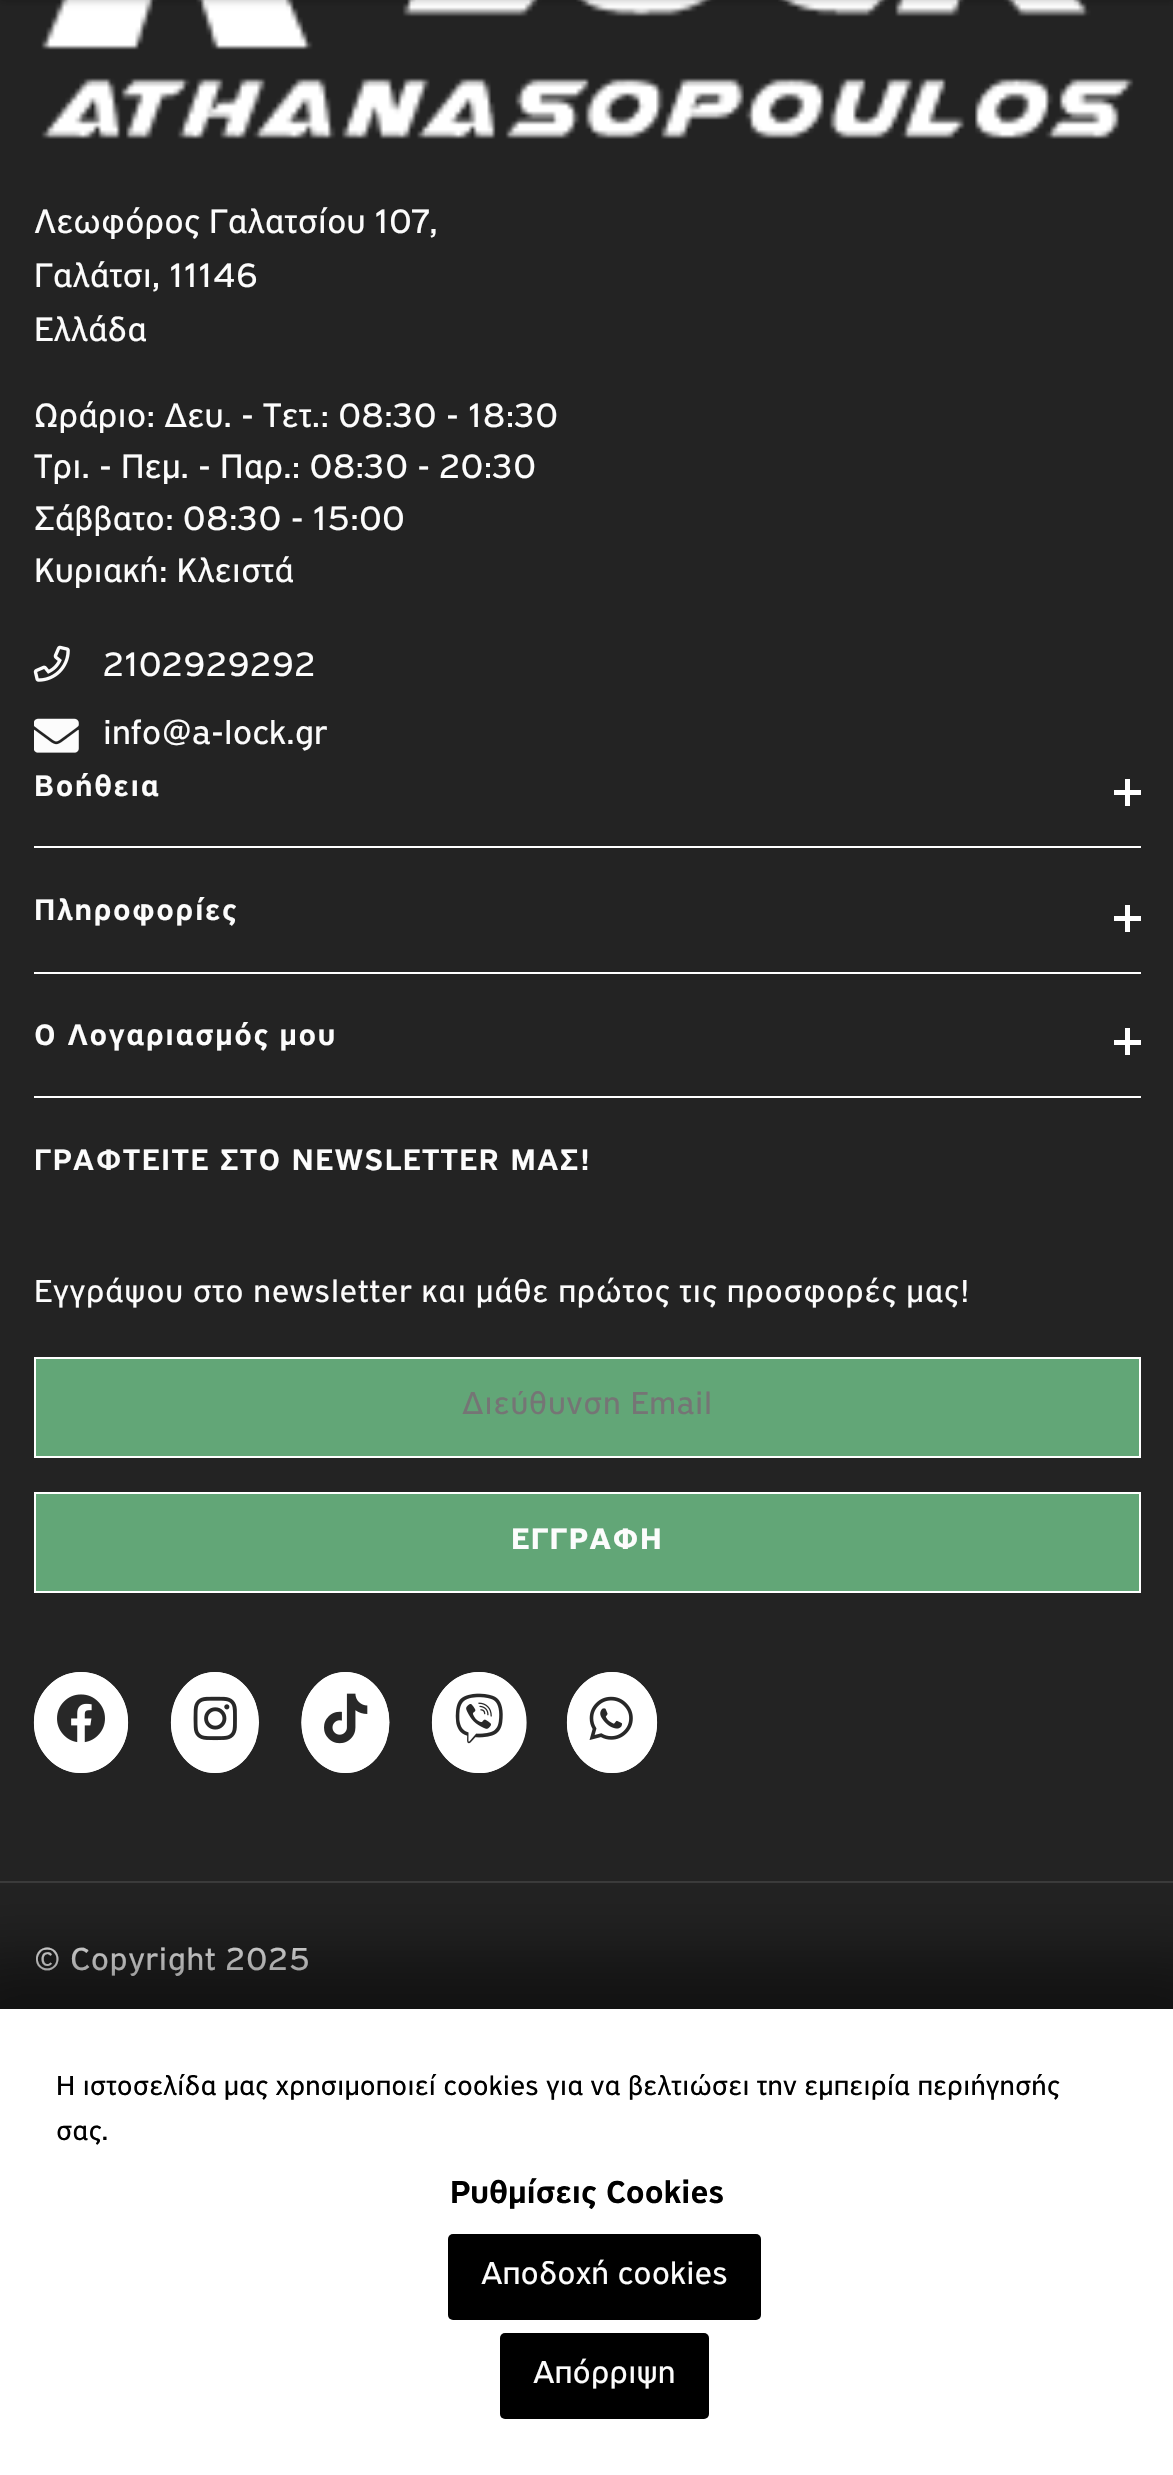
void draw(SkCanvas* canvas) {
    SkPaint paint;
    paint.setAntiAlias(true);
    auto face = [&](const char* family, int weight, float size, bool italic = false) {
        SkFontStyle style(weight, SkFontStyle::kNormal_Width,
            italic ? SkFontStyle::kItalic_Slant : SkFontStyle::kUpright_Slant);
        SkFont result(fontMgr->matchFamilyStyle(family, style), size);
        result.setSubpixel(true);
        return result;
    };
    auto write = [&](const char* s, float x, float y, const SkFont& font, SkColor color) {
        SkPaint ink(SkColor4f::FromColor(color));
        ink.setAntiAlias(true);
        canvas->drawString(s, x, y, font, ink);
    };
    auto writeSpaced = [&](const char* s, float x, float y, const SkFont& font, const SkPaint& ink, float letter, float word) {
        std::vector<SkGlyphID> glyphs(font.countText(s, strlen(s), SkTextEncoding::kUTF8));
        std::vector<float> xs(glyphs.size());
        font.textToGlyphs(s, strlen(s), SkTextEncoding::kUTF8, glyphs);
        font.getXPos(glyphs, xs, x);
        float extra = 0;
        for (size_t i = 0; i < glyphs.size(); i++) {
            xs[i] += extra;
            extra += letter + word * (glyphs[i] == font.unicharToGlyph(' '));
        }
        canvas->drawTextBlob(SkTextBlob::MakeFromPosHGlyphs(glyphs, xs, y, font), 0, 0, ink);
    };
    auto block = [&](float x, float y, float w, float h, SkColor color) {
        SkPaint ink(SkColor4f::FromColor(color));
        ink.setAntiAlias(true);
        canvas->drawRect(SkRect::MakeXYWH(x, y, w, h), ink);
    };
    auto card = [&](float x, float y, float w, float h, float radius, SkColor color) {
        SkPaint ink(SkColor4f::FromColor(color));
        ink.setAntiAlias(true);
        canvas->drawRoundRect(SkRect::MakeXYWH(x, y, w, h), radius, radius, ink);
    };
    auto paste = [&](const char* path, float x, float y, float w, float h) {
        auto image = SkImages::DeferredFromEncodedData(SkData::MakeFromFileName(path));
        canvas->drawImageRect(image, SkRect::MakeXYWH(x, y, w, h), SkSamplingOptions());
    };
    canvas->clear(SkColorSetRGB(35, 35, 35));
    paste("pic1.png", 41, 0, 1093, 139);
    paint.setColor(SkColorSetARGB(31, 0, 0, 0));
    paint.setMaskFilter(SkMaskFilter::MakeBlur(kNormal_SkBlurStyle, 3.5f));
    canvas->drawRect(SkRect::MakeXYWH(0, -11, 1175, 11), paint);
    paint.setMaskFilter(nullptr);
    paint.setColor(SkColorSetARGB(26, 0, 0, 0));
    paint.setMaskFilter(SkMaskFilter::MakeBlur(kNormal_SkBlurStyle, 3.5f));
    canvas->drawRect(SkRect::MakeXYWH(0, -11, 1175, 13), paint);
    paint.setMaskFilter(nullptr);
    auto kFont1 = face("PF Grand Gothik", 400, 36);
    write("Λεωφόρος Γαλατσίου 107,", 34, 233, kFont1, SkColorSetRGB(252, 252, 252));
    write("Γαλάτσι, 11146", 34, 287, kFont1, SkColorSetRGB(252, 252, 252));
    write("Ελλάδα", 34, 341, kFont1, SkColorSetRGB(252, 252, 252));
    write("Ωράριο: Δευ. - Τετ.: 08:30 - 18:30", 34, 427, kFont1, SkColorSetRGB(252, 252, 252));
    write("Τρι. - Πεμ. - Παρ.: 08:30 - 20:30", 34, 478, kFont1, SkColorSetRGB(252, 252, 252));
    write("Σάββατο: 08:30 - 15:00", 34, 530, kFont1, SkColorSetRGB(252, 252, 252));
    write("Κυριακή: Κλειστά", 34, 582, kFont1, SkColorSetRGB(252, 252, 252));
    paste("pic2.png", 33, 645, 37, 37);
    write("2102929292", 103, 676, kFont1, SkColorSetRGB(252, 252, 252));
    paste("pic3.png", 34, 718, 45, 35);
    write("info@a-lock.gr", 103, 744, kFont1, SkColorSetRGB(252, 252, 252));
    block(34, 846, 1107, 2, SK_ColorWHITE);
    auto kFont2 = face("PF Grand Gothik", 600, 31.5f);
    paint.setColor(SkColorSetRGB(252, 252, 252));
    writeSpaced("Βοήθεια", 34, 796, kFont2, paint, 1.6f, 0);
    block(1125, 779, 5, 27, SK_ColorWHITE);
    block(1114, 790, 27, 5, SK_ColorWHITE);
    block(34, 972, 1107, 2, SK_ColorWHITE);
    writeSpaced("Πληροφορίες", 34, 920, kFont2, paint, 1.6f, 0);
    block(1125, 905, 5, 27, SK_ColorWHITE);
    block(1114, 916, 27, 5, SK_ColorWHITE);
    block(34, 1096, 1107, 2, SK_ColorWHITE);
    writeSpaced("Ο Λογαριασμός μου", 34, 1045, kFont2, paint, 1.6f, 0);
    block(1125, 1028, 5, 27, SK_ColorWHITE);
    block(1114, 1040, 27, 5, SK_ColorWHITE);
    writeSpaced("ΓΡΑΦΤΕΙΤΕ ΣΤΟ NEWSLETTER ΜΑΣ!", 34, 1170, kFont2, paint, 1.6f, 0);
    auto kFont3 = face("PF Grand Gothik", 400, 33.75f);
    writeSpaced("Εγγράψου στο newsletter και μάθε πρώτος τις προσφορές μας!", 34, 1302, kFont3, paint, 0.67f, 0);
    paint.setColor(SkColorSetRGB(98, 166, 119));
    canvas->drawRect(SkRect::MakeXYWH(35, 1358, 1105, 99), paint);
    paint.setStyle(SkPaint::kStroke_Style);
    paint.setStrokeWidth(2);
    paint.setColor(SK_ColorWHITE);
    canvas->drawRect(SkRect::MakeXYWH(35, 1358, 1105, 99), paint);
    canvas->save();
    canvas->clipRect(SkRect::MakeXYWH(63, 1391, 1049, 33));
    paint.setStyle(SkPaint::kFill_Style);
    paint.setColor(SkColorSetRGB(117, 117, 117));
    writeSpaced("Διεύθυνση Email", 462, 1414, kFont3, paint, 0.67f, 0);
    canvas->restore();
    paint.setColor(SkColorSetRGB(98, 166, 119));
    canvas->drawRect(SkRect::MakeXYWH(35, 1493, 1105, 99), paint);
    paint.setStyle(SkPaint::kStroke_Style);
    paint.setColor(SK_ColorWHITE);
    canvas->drawRect(SkRect::MakeXYWH(35, 1493, 1105, 99), paint);
    auto kFont4 = face("PF Grand Gothik", 700, 31.5f);
    paint.setStyle(SkPaint::kFill_Style);
    paint.setColor(SkColorSetRGB(252, 252, 252));
    writeSpaced("ΕΓΓΡΑΦΗ", 511, 1549, kFont4, paint, 1.6f, 0);
    paint.setColor(SK_ColorWHITE);
    canvas->drawOval(SkRect::MakeXYWH(34, 1672, 94, 101), paint);
    paint.setStyle(SkPaint::kStroke_Style);
    paint.setStrokeWidth(2.2f);
    canvas->drawPath(SkPathBuilder().moveTo(81, 1673).cubicTo(106.5f, 1673, 127, 1695, 127, 1722.5f).cubicTo(127, 1749.5f, 106.5f, 1772, 81, 1772).cubicTo(55.5f, 1772, 35, 1749.5f, 35, 1722.5f).cubicTo(35, 1695, 55.5f, 1673, 81, 1673).close().detach(), paint);
    paste("pic4.png", 57, 1694, 48, 49);
    paint.setStyle(SkPaint::kFill_Style);
    canvas->drawOval(SkRect::MakeXYWH(171, 1672, 88, 101), paint);
    paint.setStyle(SkPaint::kStroke_Style);
    canvas->drawPath(SkPathBuilder().moveTo(215, 1673).cubicTo(238.5f, 1673, 257.5f, 1695, 257.5f, 1722.5f).cubicTo(257.5f, 1749.5f, 238.5f, 1772, 215, 1772).cubicTo(191.5f, 1772, 172, 1749.5f, 172, 1722.5f).cubicTo(172, 1695, 191.5f, 1673, 215, 1673).close().detach(), paint);
    paste("pic5.png", 193, 1696, 44, 45);
    paint.setStyle(SkPaint::kFill_Style);
    canvas->drawOval(SkRect::MakeXYWH(301.5f, 1672, 88, 101), paint);
    paint.setStyle(SkPaint::kStroke_Style);
    canvas->drawPath(SkPathBuilder().moveTo(345.5f, 1673).cubicTo(369, 1673, 388, 1695, 388, 1722.5f).cubicTo(388, 1749.5f, 369, 1772, 345.5f, 1772).cubicTo(322, 1772, 302.5f, 1749.5f, 302.5f, 1722.5f).cubicTo(302.5f, 1695, 322, 1673, 345.5f, 1673).close().detach(), paint);
    paste("pic6.png", 324, 1693, 44, 51);
    paint.setStyle(SkPaint::kFill_Style);
    canvas->drawOval(SkRect::MakeXYWH(432, 1672, 94, 101), paint);
    paint.setStyle(SkPaint::kStroke_Style);
    canvas->drawPath(SkPathBuilder().moveTo(479, 1673).cubicTo(504.5f, 1673, 525.5f, 1695, 525.5f, 1722.5f).cubicTo(525.5f, 1749.5f, 504.5f, 1772, 479, 1772).cubicTo(454, 1772, 433, 1749.5f, 433, 1722.5f).cubicTo(433, 1695, 454, 1673, 479, 1673).close().detach(), paint);
    paste("pic7.png", 455, 1693, 48, 51);
    paint.setStyle(SkPaint::kFill_Style);
    canvas->drawOval(SkRect::MakeXYWH(567, 1672, 90, 101), paint);
    paint.setStyle(SkPaint::kStroke_Style);
    canvas->drawPath(SkPathBuilder().moveTo(612, 1673).cubicTo(636, 1673, 656, 1695, 656, 1722.5f).cubicTo(656, 1749.5f, 636, 1772, 612, 1772).cubicTo(588, 1772, 568, 1749.5f, 568, 1722.5f).cubicTo(568, 1695, 588, 1673, 612, 1673).close().detach(), paint);
    paste("pic8.png", 589, 1696, 44, 44);
    block(0, 1881, 1173, 2, SkColorSetRGB(59, 59, 59));
    paint.setStyle(SkPaint::kFill_Style);
    paint.setColor(SkColorSetRGB(252, 252, 252));
    writeSpaced("© Copyright 2025", 34, 1970, kFont3, paint, 0.67f, 0);
    paint.setColor(SkColorSetARGB(128, 0, 0, 0));
    paint.setMaskFilter(SkMaskFilter::MakeBlur(kNormal_SkBlurStyle, 34));
    canvas->drawRect(SkRect::MakeXYWH(-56, 1953, 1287, 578), paint);
    paint.setMaskFilter(nullptr);
    block(0, 2009, 1173, 466, SK_ColorWHITE);
    auto kFont5 = face("PF Grand Gothik", 400, 29.25f);
    write("Η ιστοσελίδα μας χρησιμοποιεί cookies για να βελτιώσει την εμπειρία περιήγησής", 56, 2095, kFont5, SK_ColorBLACK);
    write("σας.", 56, 2140, kFont5, SK_ColorBLACK);
    auto kFont6 = face("PF Grand Gothik", 600, 33.75f);
    write("Ρυθμίσεις Cookies", 450, 2203, kFont6, SK_ColorBLACK);
    card(448, 2234, 313, 86, 5, SK_ColorBLACK);
    write("Αποδοχή cookies", 481, 2284, kFont3, SkColorSetRGB(252, 252, 252));
    card(500, 2333, 209, 86, 5, SK_ColorBLACK);
    write("Απόρριψη", 533, 2383, kFont3, SkColorSetRGB(252, 252, 252));
}
